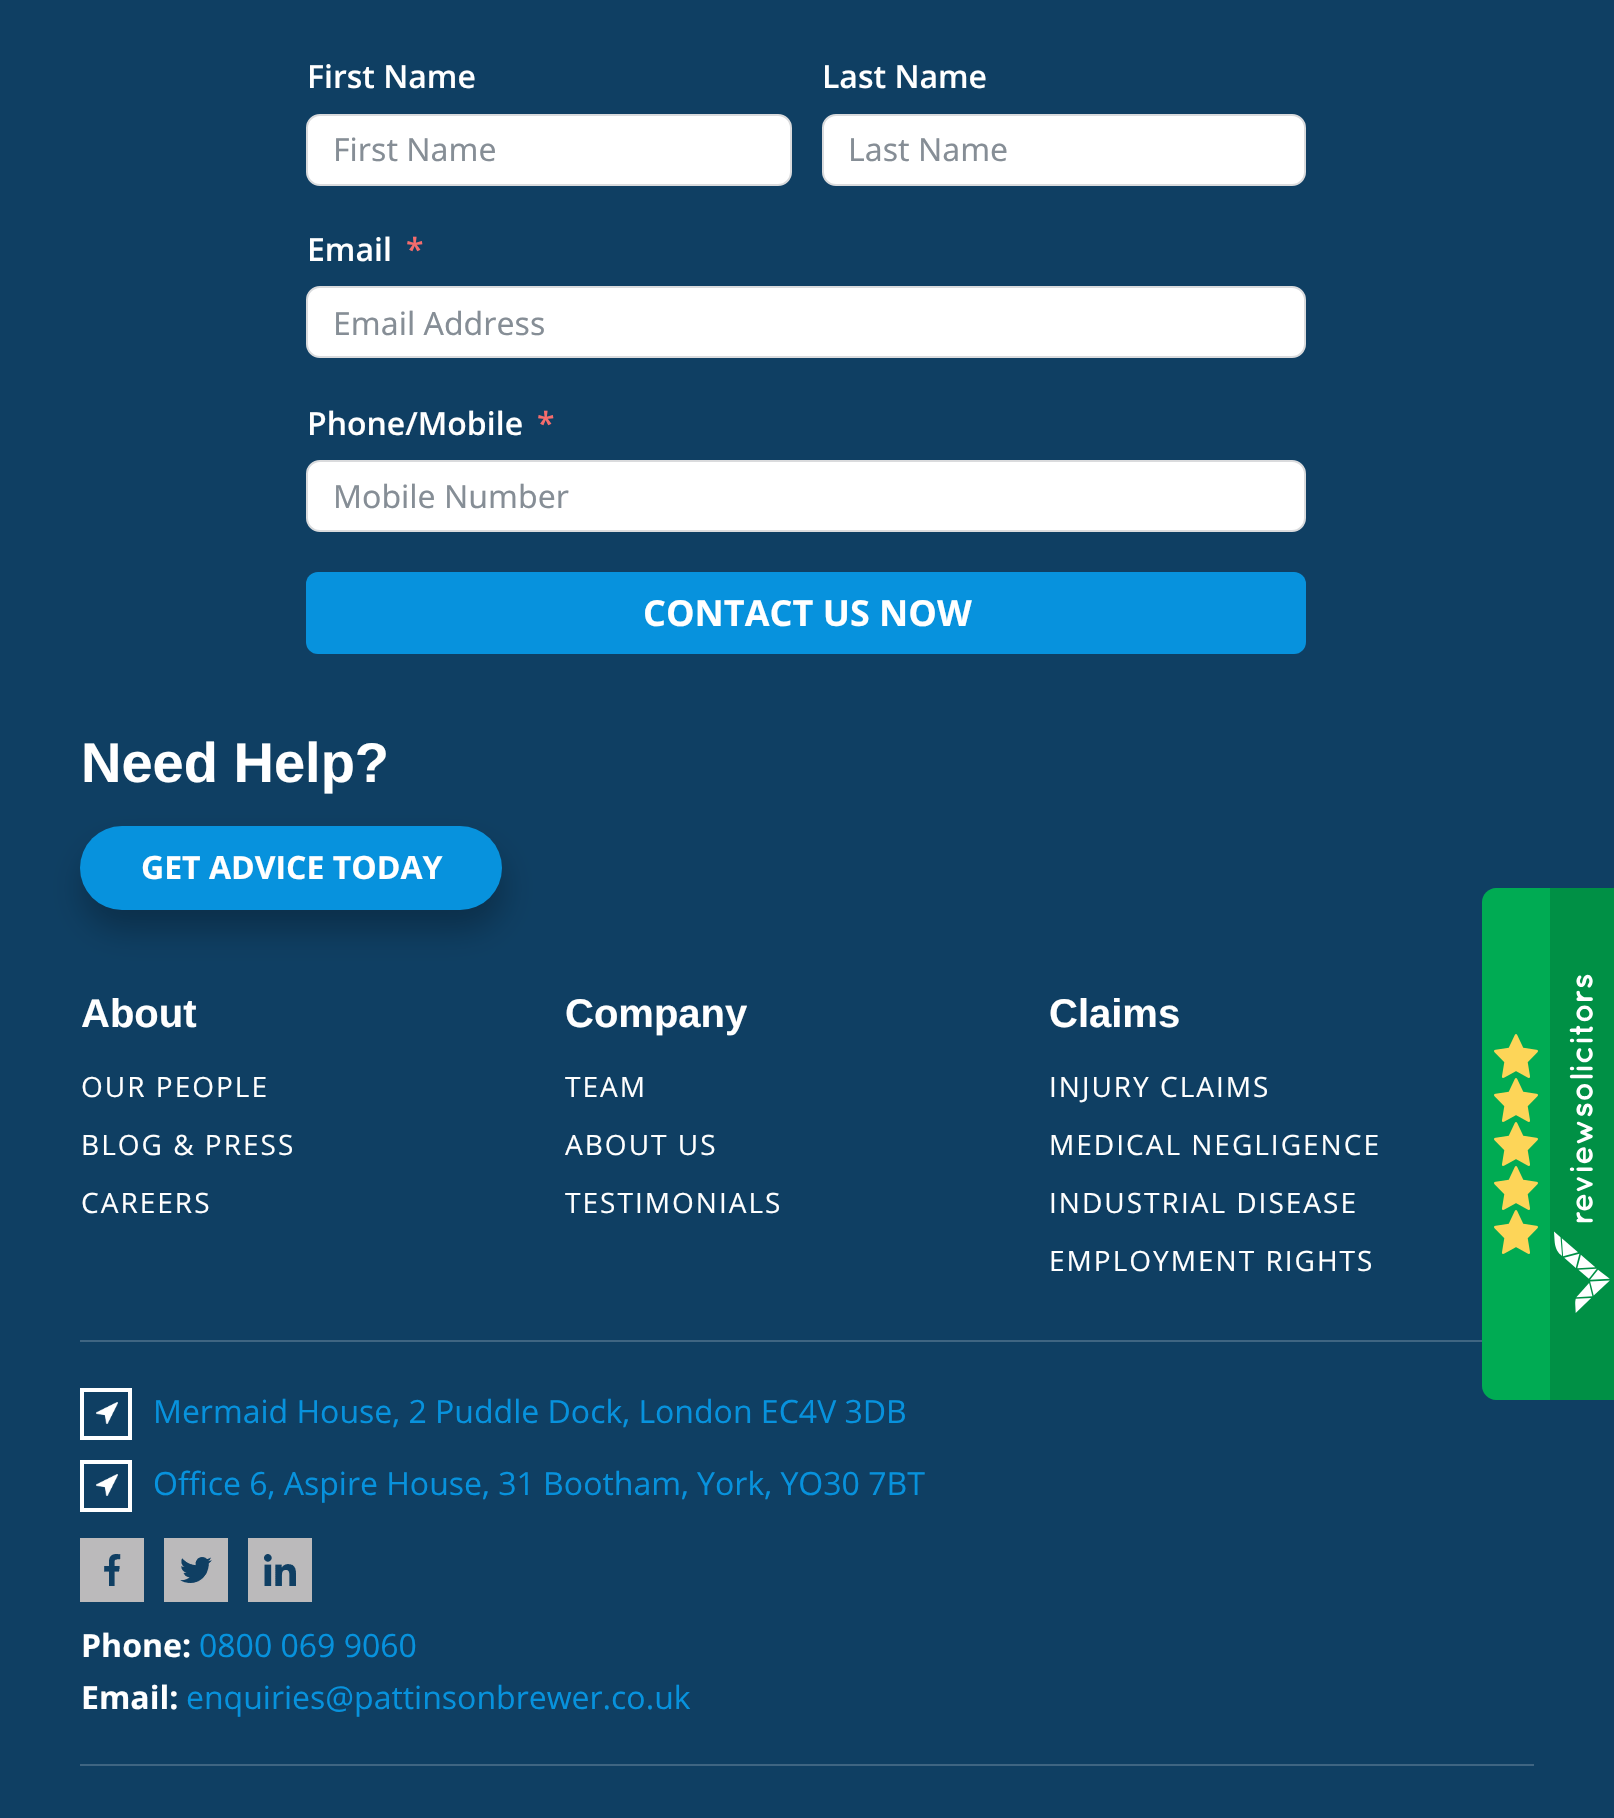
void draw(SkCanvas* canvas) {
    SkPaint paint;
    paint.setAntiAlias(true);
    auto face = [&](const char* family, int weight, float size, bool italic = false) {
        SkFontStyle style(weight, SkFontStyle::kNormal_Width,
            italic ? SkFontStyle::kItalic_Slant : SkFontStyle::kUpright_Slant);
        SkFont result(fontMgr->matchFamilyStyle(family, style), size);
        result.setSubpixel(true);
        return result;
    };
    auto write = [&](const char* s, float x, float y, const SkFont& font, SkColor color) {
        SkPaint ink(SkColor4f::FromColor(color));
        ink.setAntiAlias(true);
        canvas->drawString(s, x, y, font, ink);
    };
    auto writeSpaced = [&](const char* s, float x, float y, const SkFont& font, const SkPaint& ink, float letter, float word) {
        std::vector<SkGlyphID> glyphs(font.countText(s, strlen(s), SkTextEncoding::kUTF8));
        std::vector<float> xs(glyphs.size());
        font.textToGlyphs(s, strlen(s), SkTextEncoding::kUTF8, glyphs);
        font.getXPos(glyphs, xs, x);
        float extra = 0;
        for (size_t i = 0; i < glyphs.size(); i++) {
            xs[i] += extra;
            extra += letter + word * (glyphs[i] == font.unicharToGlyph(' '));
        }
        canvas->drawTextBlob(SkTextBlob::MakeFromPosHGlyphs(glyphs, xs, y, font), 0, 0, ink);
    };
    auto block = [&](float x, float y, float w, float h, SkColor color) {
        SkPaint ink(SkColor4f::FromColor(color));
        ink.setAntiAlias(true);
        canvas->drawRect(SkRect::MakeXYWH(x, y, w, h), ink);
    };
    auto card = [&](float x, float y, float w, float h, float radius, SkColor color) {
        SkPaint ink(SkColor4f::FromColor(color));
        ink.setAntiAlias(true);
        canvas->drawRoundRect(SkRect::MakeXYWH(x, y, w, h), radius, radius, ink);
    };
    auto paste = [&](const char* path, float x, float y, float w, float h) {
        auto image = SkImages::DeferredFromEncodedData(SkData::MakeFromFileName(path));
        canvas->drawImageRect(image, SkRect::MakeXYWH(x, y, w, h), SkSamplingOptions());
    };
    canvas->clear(SkColorSetRGB(15, 63, 99));
    auto kFont1 = face("Open Sans", 600, 32);
    write("First Name", 307, 88, kFont1, SK_ColorWHITE);
    paint.setColor(SK_ColorWHITE);
    canvas->drawRoundRect(SkRect::MakeXYWH(307, 115, 484, 70), 13, 13, paint);
    paint.setStyle(SkPaint::kStroke_Style);
    paint.setStrokeWidth(2);
    paint.setColor(SkColorSetRGB(218, 219, 221));
    canvas->drawRoundRect(SkRect::MakeXYWH(307, 115, 484, 70), 13, 13, paint);
    auto kFont2 = face("Noto Sans", 400, 32);
    write("First Name", 333, 161, kFont2, SkColorSetRGB(134, 142, 150));
    write("Last Name", 822, 88, kFont1, SK_ColorWHITE);
    paint.setStyle(SkPaint::kFill_Style);
    paint.setColor(SK_ColorWHITE);
    canvas->drawRoundRect(SkRect::MakeXYWH(823, 115, 482, 70), 13, 13, paint);
    paint.setStyle(SkPaint::kStroke_Style);
    paint.setColor(SkColorSetRGB(218, 219, 221));
    canvas->drawRoundRect(SkRect::MakeXYWH(823, 115, 482, 70), 13, 13, paint);
    write("Last Name", 848, 161, kFont2, SkColorSetRGB(134, 142, 150));
    write("Email", 307, 261, kFont1, SK_ColorWHITE);
    write("*", 406, 261, kFont1, SkColorSetRGB(245, 108, 108));
    paint.setStyle(SkPaint::kFill_Style);
    paint.setColor(SK_ColorWHITE);
    canvas->drawRoundRect(SkRect::MakeXYWH(307, 287, 998, 70), 13, 13, paint);
    paint.setStyle(SkPaint::kStroke_Style);
    paint.setColor(SkColorSetRGB(218, 219, 221));
    canvas->drawRoundRect(SkRect::MakeXYWH(307, 287, 998, 70), 13, 13, paint);
    write("Email Address", 333, 335, kFont2, SkColorSetRGB(134, 142, 150));
    write("Phone/Mobile", 307, 435, kFont1, SK_ColorWHITE);
    write("*", 537, 435, kFont1, SkColorSetRGB(245, 108, 108));
    paint.setStyle(SkPaint::kFill_Style);
    paint.setColor(SK_ColorWHITE);
    canvas->drawRoundRect(SkRect::MakeXYWH(307, 461, 998, 70), 13, 13, paint);
    paint.setStyle(SkPaint::kStroke_Style);
    paint.setColor(SkColorSetRGB(218, 219, 221));
    canvas->drawRoundRect(SkRect::MakeXYWH(307, 461, 998, 70), 13, 13, paint);
    write("Mobile Number", 333, 508, kFont2, SkColorSetRGB(134, 142, 150));
    card(306, 572, 1000, 82, 12, SkColorSetRGB(7, 146, 221));
    auto kFont3 = face("Open Sans", 700, 36);
    write("CONTACT US NOW", 643, 626, kFont3, SK_ColorWHITE);
    auto kFont4 = face("Liberation Sans", 700, 56);
    write("Need Help?", 81, 782, kFont4, SK_ColorWHITE);
    paint.setStyle(SkPaint::kFill_Style);
    paint.setColor(SkColorSetARGB(64, 0, 0, 0));
    paint.setMaskFilter(SkMaskFilter::MakeBlur(kNormal_SkBlurStyle, 16));
    canvas->drawRoundRect(SkRect::MakeXYWH(82, 846, 422, 84), 42, 42, paint);
    paint.setMaskFilter(nullptr);
    card(80, 826, 422, 84, 42, SkColorSetRGB(7, 146, 221));
    auto kFont5 = face("Open Sans", 700, 32);
    write("GET ADVICE TODAY", 141, 879, kFont5, SK_ColorWHITE);
    auto kFont6 = face("Liberation Sans", 700, 40);
    write("About", 81, 1027, kFont6, SK_ColorWHITE);
    auto kFont7 = face("Open Sans", 400, 28);
    paint.setColor(SK_ColorWHITE);
    writeSpaced("OUR PEOPLE", 81, 1097, kFont7, paint, 2, 0);
    writeSpaced("BLOG & PRESS", 81, 1155, kFont7, paint, 2, 0);
    writeSpaced("CAREERS", 81, 1213, kFont7, paint, 2, 0);
    write("Company", 565, 1027, kFont6, SK_ColorWHITE);
    writeSpaced("TEAM", 565, 1097, kFont7, paint, 2, 0);
    writeSpaced("ABOUT US", 565, 1155, kFont7, paint, 2, 0);
    writeSpaced("TESTIMONIALS", 565, 1213, kFont7, paint, 2, 0);
    write("Claims", 1049, 1027, kFont6, SK_ColorWHITE);
    writeSpaced("INJURY CLAIMS", 1049, 1097, kFont7, paint, 2, 0);
    writeSpaced("MEDICAL NEGLIGENCE", 1049, 1155, kFont7, paint, 2, 0);
    writeSpaced("INDUSTRIAL DISEASE", 1049, 1213, kFont7, paint, 2, 0);
    writeSpaced("EMPLOYMENT RIGHTS", 1049, 1271, kFont7, paint, 2, 0);
    block(80, 1340, 1402, 2, SkColorSetRGB(63, 101, 130));
    block(80, 1764, 1454, 2, SkColorSetRGB(63, 101, 130));
    paste("pic1.png", 96, 1402, 22, 22);
    paint.setStyle(SkPaint::kStroke_Style);
    paint.setStrokeWidth(4);
    canvas->drawRect(SkRect::MakeXYWH(82, 1390, 48, 48), paint);
    auto kFont8 = face("Open Sans", 400, 32);
    write("Mermaid House, 2 Puddle Dock, London EC4V 3DB", 153, 1423, kFont8, SkColorSetRGB(7, 146, 221));
    paste("pic1.png", 96, 1474, 22, 22);
    canvas->drawRect(SkRect::MakeXYWH(82, 1462, 48, 48), paint);
    write("Office 6, Aspire House, 31 Bootham, York, YO30 7BT", 153, 1495, kFont8, SkColorSetRGB(7, 146, 221));
    block(80, 1538, 64, 64, SkColorSetRGB(187, 186, 187));
    paste("pic2.png", 104, 1554, 17, 32);
    block(164, 1538, 64, 64, SkColorSetRGB(187, 186, 187));
    paste("pic3.png", 180, 1557, 32, 26);
    block(248, 1538, 64, 64, SkColorSetRGB(187, 186, 187));
    paste("pic4.png", 264, 1554, 32, 32);
    write("Phone:", 81, 1657, kFont5, SK_ColorWHITE);
    write("0800 069 9060", 199, 1657, kFont8, SkColorSetRGB(7, 146, 221));
    write("Email:", 81, 1709, kFont5, SK_ColorWHITE);
    write("enquiries@pattinsonbrewer.co.uk", 186, 1709, kFont8, SkColorSetRGB(7, 146, 221));
    paint.setStyle(SkPaint::kFill_Style);
    paint.setColor(SkColorSetRGB(0, 171, 83));
    canvas->drawPath(SkPathBuilder().moveTo(1496, 888).lineTo(1614, 888).lineTo(1614, 1400).lineTo(1496, 1400).cubicTo(1488.5f, 1400, 1482, 1393.5f, 1482, 1386).lineTo(1482, 902).cubicTo(1482, 894.5f, 1488.5f, 888, 1496, 888).close().detach(), paint);
    paste("pic5.png", 1494, 1034, 44, 44);
    paste("pic5.png", 1494, 1078, 44, 44);
    paste("pic5.png", 1494, 1122, 44, 44);
    paste("pic5.png", 1494, 1166, 44, 44);
    paste("pic5.png", 1494, 1210, 44, 44);
    block(1550, 888, 64, 512, SkColorSetRGB(0, 144, 69));
    paste("pic6.png", 1554, 974, 56, 339);
}
